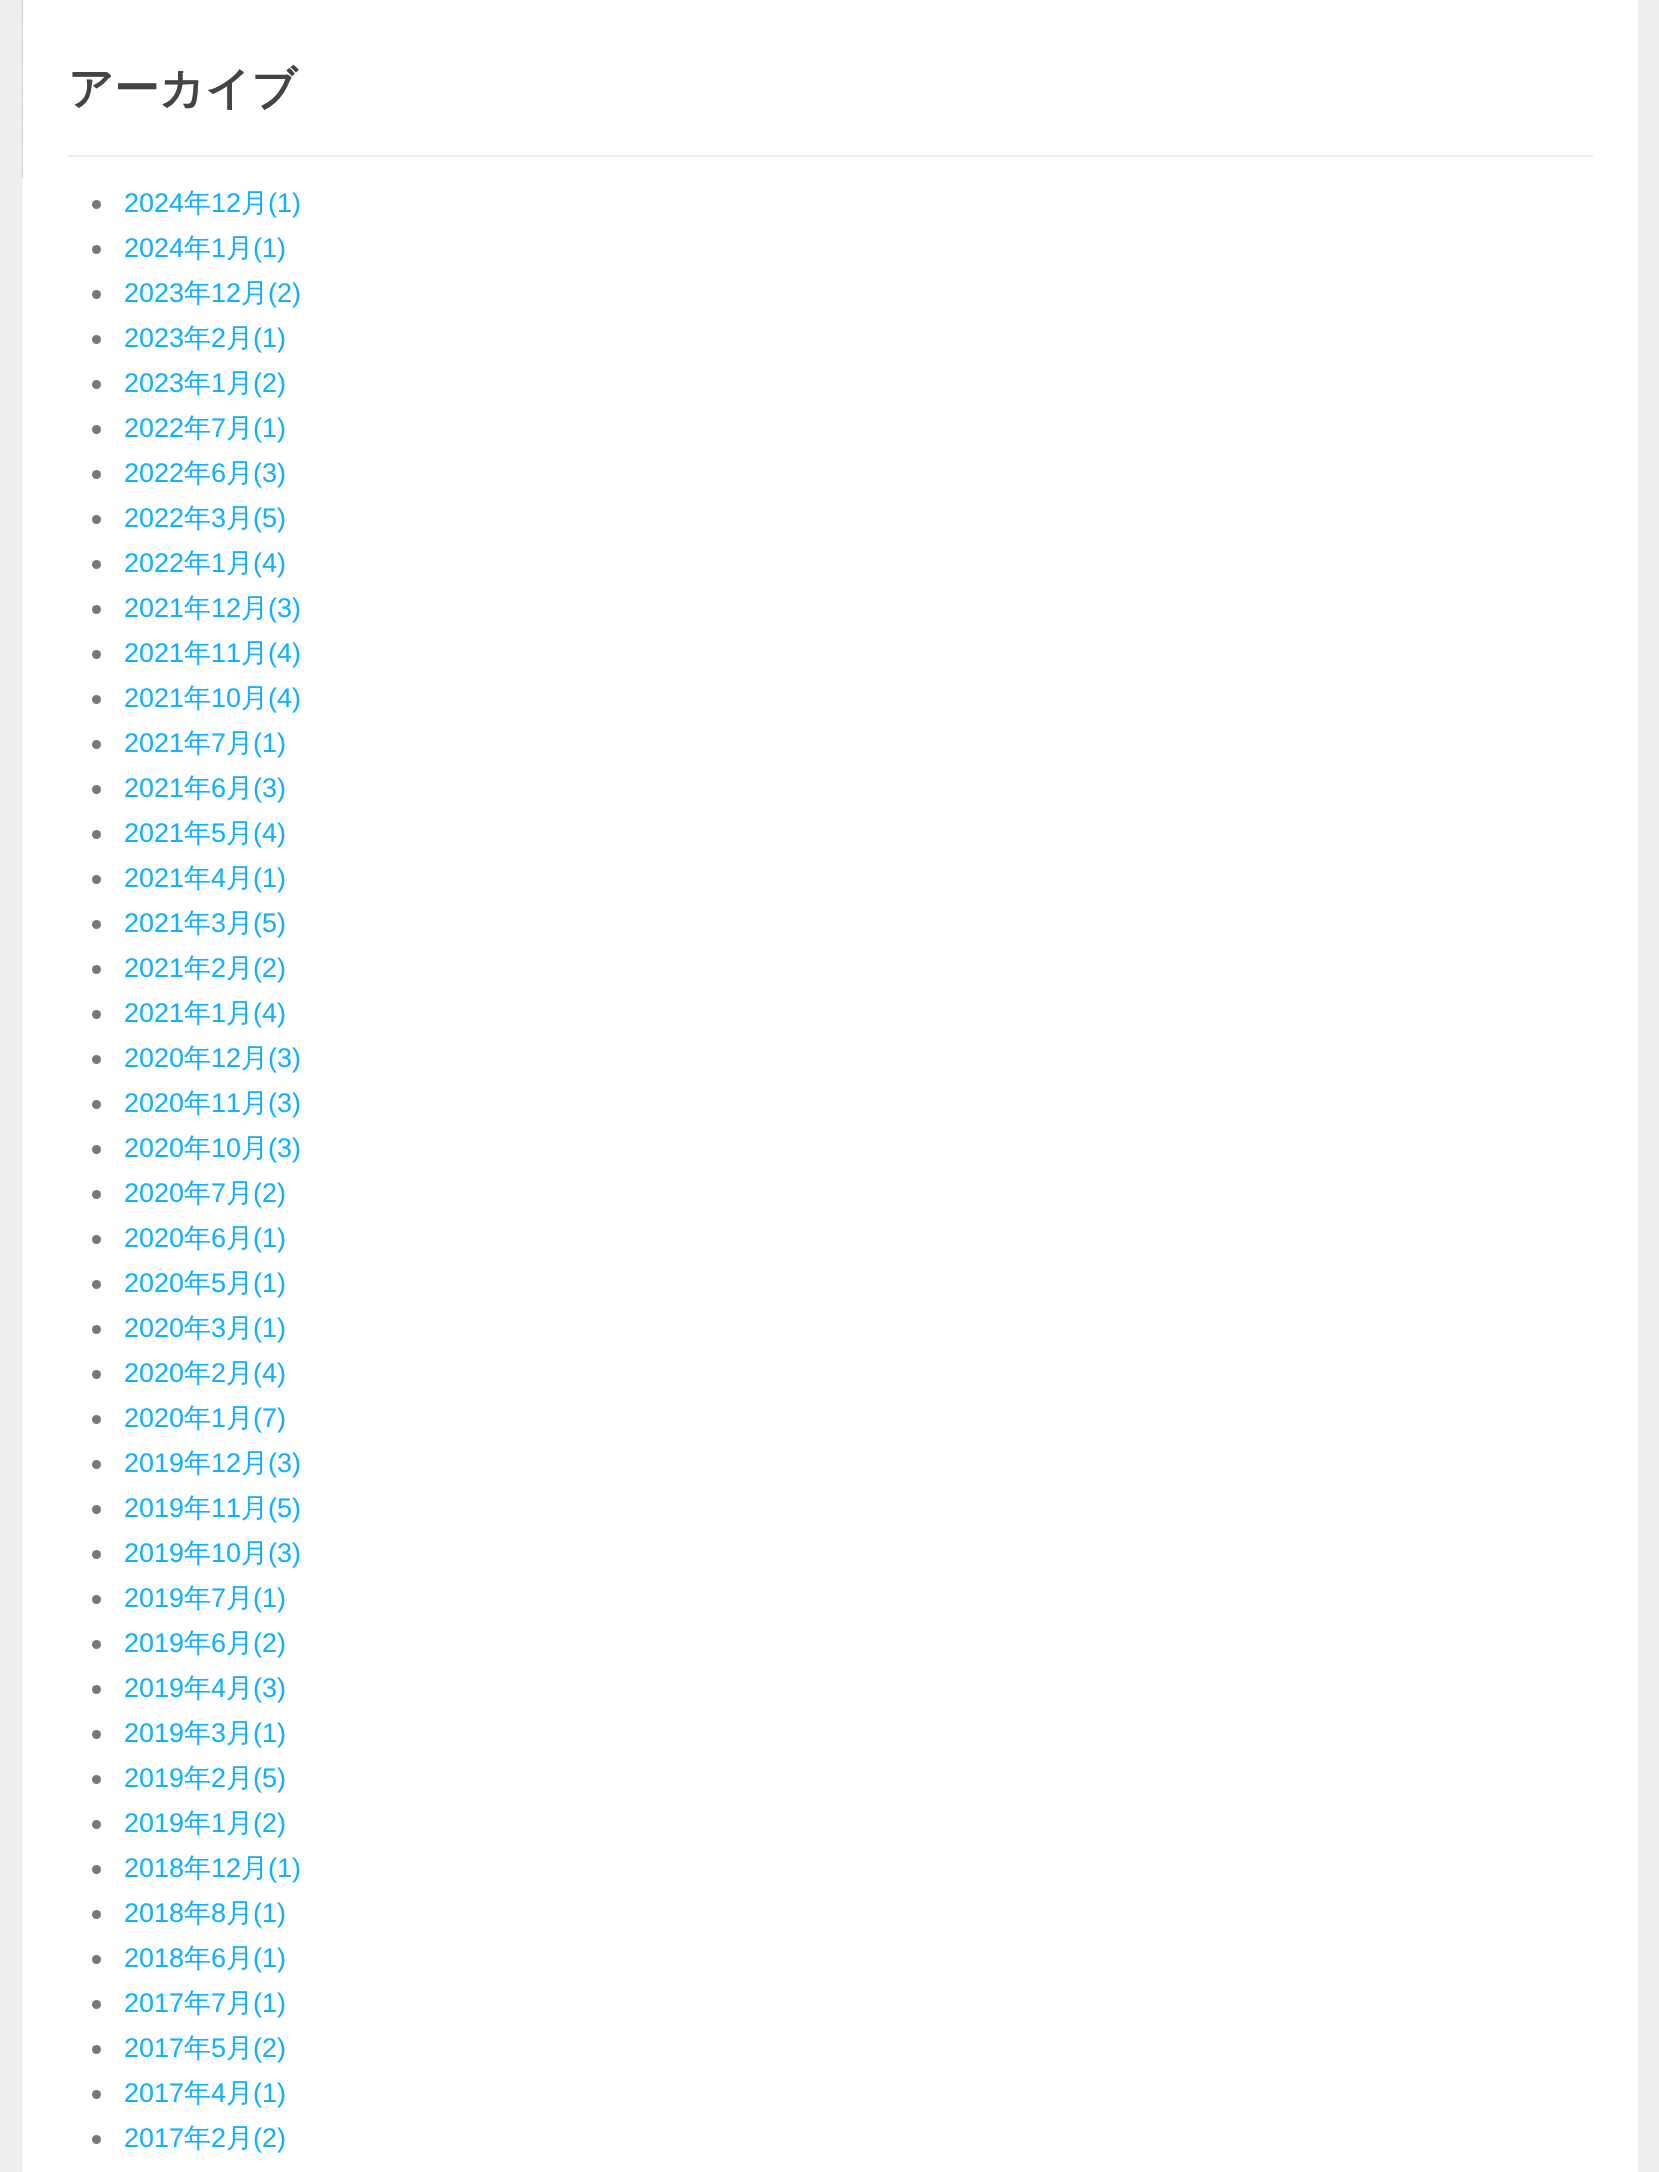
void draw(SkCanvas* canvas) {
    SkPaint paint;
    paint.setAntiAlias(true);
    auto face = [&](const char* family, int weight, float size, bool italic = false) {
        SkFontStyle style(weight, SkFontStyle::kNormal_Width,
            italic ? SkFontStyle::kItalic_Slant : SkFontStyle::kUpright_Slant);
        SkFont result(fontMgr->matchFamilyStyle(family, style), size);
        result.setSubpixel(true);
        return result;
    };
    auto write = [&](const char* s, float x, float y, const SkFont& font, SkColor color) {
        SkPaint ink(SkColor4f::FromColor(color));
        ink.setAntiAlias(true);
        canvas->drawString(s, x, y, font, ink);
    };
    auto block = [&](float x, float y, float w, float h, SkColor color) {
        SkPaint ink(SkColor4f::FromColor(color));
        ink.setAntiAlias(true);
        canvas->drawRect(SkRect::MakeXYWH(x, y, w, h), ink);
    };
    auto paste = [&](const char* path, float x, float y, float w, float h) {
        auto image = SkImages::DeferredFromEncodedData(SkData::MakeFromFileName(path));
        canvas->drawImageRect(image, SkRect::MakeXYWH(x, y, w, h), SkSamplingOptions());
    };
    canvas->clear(SkColorSetRGB(238, 238, 238));
    paste("pic1.png", 22, 0, 1, 178);
    block(67, 0, 1526, 2172, SK_ColorWHITE);
    paint.setStyle(SkPaint::kStroke_Style);
    paint.setStrokeWidth(45);
    paint.setColor(SK_ColorWHITE);
    canvas->drawPath(SkPathBuilder().moveTo(45, -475).lineTo(1615.5f, -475).lineTo(1615.5f, 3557).lineTo(45, 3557).close().detach(), paint);
    block(68, 155, 1525, 2, SkColorSetRGB(238, 238, 238));
    auto kFont1 = face("WenQuanYi Zen Hei", 700, 45);
    write("アーカイブ", 68, 104, kFont1, SkColorSetRGB(68, 68, 68));
    paint.setStyle(SkPaint::kFill_Style);
    paint.setColor(SkColorSetRGB(119, 119, 119));
    canvas->drawCircle(96.5f, 204.5f, 4.5f, paint);
    auto kFont2 = face("Liberation Sans", 400, 27);
    write("2024", 124, 212, kFont2, SkColorSetRGB(18, 176, 255));
    auto kFont3 = face("WenQuanYi Zen Hei", 500, 27);
    write("年", 184, 212, kFont3, SkColorSetRGB(18, 176, 255));
    write("12", 211, 212, kFont2, SkColorSetRGB(18, 176, 255));
    write("月", 241, 212, kFont3, SkColorSetRGB(18, 176, 255));
    write("(1)", 268, 212, kFont2, SkColorSetRGB(18, 176, 255));
    canvas->drawCircle(96.5f, 249.5f, 4.5f, paint);
    write("2024", 124, 257, kFont2, SkColorSetRGB(18, 176, 255));
    write("年", 184, 257, kFont3, SkColorSetRGB(18, 176, 255));
    write("1", 211, 257, kFont2, SkColorSetRGB(18, 176, 255));
    write("月", 226, 257, kFont3, SkColorSetRGB(18, 176, 255));
    write("(1)", 253, 257, kFont2, SkColorSetRGB(18, 176, 255));
    canvas->drawCircle(96.5f, 294.5f, 4.5f, paint);
    write("2023", 124, 302, kFont2, SkColorSetRGB(18, 176, 255));
    write("年", 184, 302, kFont3, SkColorSetRGB(18, 176, 255));
    write("12", 211, 302, kFont2, SkColorSetRGB(18, 176, 255));
    write("月", 241, 302, kFont3, SkColorSetRGB(18, 176, 255));
    write("(2)", 268, 302, kFont2, SkColorSetRGB(18, 176, 255));
    canvas->drawCircle(96.5f, 339.5f, 4.5f, paint);
    write("2023", 124, 347, kFont2, SkColorSetRGB(18, 176, 255));
    write("年", 184, 347, kFont3, SkColorSetRGB(18, 176, 255));
    write("2", 211, 347, kFont2, SkColorSetRGB(18, 176, 255));
    write("月", 226, 347, kFont3, SkColorSetRGB(18, 176, 255));
    write("(1)", 253, 347, kFont2, SkColorSetRGB(18, 176, 255));
    canvas->drawCircle(96.5f, 384.5f, 4.5f, paint);
    write("2023", 124, 392, kFont2, SkColorSetRGB(18, 176, 255));
    write("年", 184, 392, kFont3, SkColorSetRGB(18, 176, 255));
    write("1", 211, 392, kFont2, SkColorSetRGB(18, 176, 255));
    write("月", 226, 392, kFont3, SkColorSetRGB(18, 176, 255));
    write("(2)", 253, 392, kFont2, SkColorSetRGB(18, 176, 255));
    canvas->drawCircle(96.5f, 429.5f, 4.5f, paint);
    write("2022", 124, 437, kFont2, SkColorSetRGB(18, 176, 255));
    write("年", 184, 437, kFont3, SkColorSetRGB(18, 176, 255));
    write("7", 211, 437, kFont2, SkColorSetRGB(18, 176, 255));
    write("月", 226, 437, kFont3, SkColorSetRGB(18, 176, 255));
    write("(1)", 253, 437, kFont2, SkColorSetRGB(18, 176, 255));
    canvas->drawCircle(96.5f, 474.5f, 4.5f, paint);
    write("2022", 124, 482, kFont2, SkColorSetRGB(18, 176, 255));
    write("年", 184, 482, kFont3, SkColorSetRGB(18, 176, 255));
    write("6", 211, 482, kFont2, SkColorSetRGB(18, 176, 255));
    write("月", 226, 482, kFont3, SkColorSetRGB(18, 176, 255));
    write("(3)", 253, 482, kFont2, SkColorSetRGB(18, 176, 255));
    canvas->drawCircle(96.5f, 519.5f, 4.5f, paint);
    write("2022", 124, 527, kFont2, SkColorSetRGB(18, 176, 255));
    write("年", 184, 527, kFont3, SkColorSetRGB(18, 176, 255));
    write("3", 211, 527, kFont2, SkColorSetRGB(18, 176, 255));
    write("月", 226, 527, kFont3, SkColorSetRGB(18, 176, 255));
    write("(5)", 253, 527, kFont2, SkColorSetRGB(18, 176, 255));
    canvas->drawCircle(96.5f, 564.5f, 4.5f, paint);
    write("2022", 124, 572, kFont2, SkColorSetRGB(18, 176, 255));
    write("年", 184, 572, kFont3, SkColorSetRGB(18, 176, 255));
    write("1", 211, 572, kFont2, SkColorSetRGB(18, 176, 255));
    write("月", 226, 572, kFont3, SkColorSetRGB(18, 176, 255));
    write("(4)", 253, 572, kFont2, SkColorSetRGB(18, 176, 255));
    canvas->drawCircle(96.5f, 609.5f, 4.5f, paint);
    write("2021", 124, 617, kFont2, SkColorSetRGB(18, 176, 255));
    write("年", 184, 617, kFont3, SkColorSetRGB(18, 176, 255));
    write("12", 211, 617, kFont2, SkColorSetRGB(18, 176, 255));
    write("月", 241, 617, kFont3, SkColorSetRGB(18, 176, 255));
    write("(3)", 268, 617, kFont2, SkColorSetRGB(18, 176, 255));
    canvas->drawCircle(96.5f, 654.5f, 4.5f, paint);
    write("2021", 124, 662, kFont2, SkColorSetRGB(18, 176, 255));
    write("年", 184, 662, kFont3, SkColorSetRGB(18, 176, 255));
    write("11", 211, 662, kFont2, SkColorSetRGB(18, 176, 255));
    write("月", 241, 662, kFont3, SkColorSetRGB(18, 176, 255));
    write("(4)", 268, 662, kFont2, SkColorSetRGB(18, 176, 255));
    canvas->drawCircle(96.5f, 699.5f, 4.5f, paint);
    write("2021", 124, 707, kFont2, SkColorSetRGB(18, 176, 255));
    write("年", 184, 707, kFont3, SkColorSetRGB(18, 176, 255));
    write("10", 211, 707, kFont2, SkColorSetRGB(18, 176, 255));
    write("月", 241, 707, kFont3, SkColorSetRGB(18, 176, 255));
    write("(4)", 268, 707, kFont2, SkColorSetRGB(18, 176, 255));
    canvas->drawCircle(96.5f, 744.5f, 4.5f, paint);
    write("2021", 124, 752, kFont2, SkColorSetRGB(18, 176, 255));
    write("年", 184, 752, kFont3, SkColorSetRGB(18, 176, 255));
    write("7", 211, 752, kFont2, SkColorSetRGB(18, 176, 255));
    write("月", 226, 752, kFont3, SkColorSetRGB(18, 176, 255));
    write("(1)", 253, 752, kFont2, SkColorSetRGB(18, 176, 255));
    canvas->drawCircle(96.5f, 789.5f, 4.5f, paint);
    write("2021", 124, 797, kFont2, SkColorSetRGB(18, 176, 255));
    write("年", 184, 797, kFont3, SkColorSetRGB(18, 176, 255));
    write("6", 211, 797, kFont2, SkColorSetRGB(18, 176, 255));
    write("月", 226, 797, kFont3, SkColorSetRGB(18, 176, 255));
    write("(3)", 253, 797, kFont2, SkColorSetRGB(18, 176, 255));
    canvas->drawCircle(96.5f, 834.5f, 4.5f, paint);
    write("2021", 124, 842, kFont2, SkColorSetRGB(18, 176, 255));
    write("年", 184, 842, kFont3, SkColorSetRGB(18, 176, 255));
    write("5", 211, 842, kFont2, SkColorSetRGB(18, 176, 255));
    write("月", 226, 842, kFont3, SkColorSetRGB(18, 176, 255));
    write("(4)", 253, 842, kFont2, SkColorSetRGB(18, 176, 255));
    canvas->drawCircle(96.5f, 879.5f, 4.5f, paint);
    write("2021", 124, 887, kFont2, SkColorSetRGB(18, 176, 255));
    write("年", 184, 887, kFont3, SkColorSetRGB(18, 176, 255));
    write("4", 211, 887, kFont2, SkColorSetRGB(18, 176, 255));
    write("月", 226, 887, kFont3, SkColorSetRGB(18, 176, 255));
    write("(1)", 253, 887, kFont2, SkColorSetRGB(18, 176, 255));
    canvas->drawCircle(96.5f, 924.5f, 4.5f, paint);
    write("2021", 124, 932, kFont2, SkColorSetRGB(18, 176, 255));
    write("年", 184, 932, kFont3, SkColorSetRGB(18, 176, 255));
    write("3", 211, 932, kFont2, SkColorSetRGB(18, 176, 255));
    write("月", 226, 932, kFont3, SkColorSetRGB(18, 176, 255));
    write("(5)", 253, 932, kFont2, SkColorSetRGB(18, 176, 255));
    canvas->drawCircle(96.5f, 969.5f, 4.5f, paint);
    write("2021", 124, 977, kFont2, SkColorSetRGB(18, 176, 255));
    write("年", 184, 977, kFont3, SkColorSetRGB(18, 176, 255));
    write("2", 211, 977, kFont2, SkColorSetRGB(18, 176, 255));
    write("月", 226, 977, kFont3, SkColorSetRGB(18, 176, 255));
    write("(2)", 253, 977, kFont2, SkColorSetRGB(18, 176, 255));
    canvas->drawCircle(96.5f, 1014.5f, 4.5f, paint);
    write("2021", 124, 1022, kFont2, SkColorSetRGB(18, 176, 255));
    write("年", 184, 1022, kFont3, SkColorSetRGB(18, 176, 255));
    write("1", 211, 1022, kFont2, SkColorSetRGB(18, 176, 255));
    write("月", 226, 1022, kFont3, SkColorSetRGB(18, 176, 255));
    write("(4)", 253, 1022, kFont2, SkColorSetRGB(18, 176, 255));
    canvas->drawCircle(96.5f, 1059.5f, 4.5f, paint);
    write("2020", 124, 1067, kFont2, SkColorSetRGB(18, 176, 255));
    write("年", 184, 1067, kFont3, SkColorSetRGB(18, 176, 255));
    write("12", 211, 1067, kFont2, SkColorSetRGB(18, 176, 255));
    write("月", 241, 1067, kFont3, SkColorSetRGB(18, 176, 255));
    write("(3)", 268, 1067, kFont2, SkColorSetRGB(18, 176, 255));
    canvas->drawCircle(96.5f, 1104.5f, 4.5f, paint);
    write("2020", 124, 1112, kFont2, SkColorSetRGB(18, 176, 255));
    write("年", 184, 1112, kFont3, SkColorSetRGB(18, 176, 255));
    write("11", 211, 1112, kFont2, SkColorSetRGB(18, 176, 255));
    write("月", 241, 1112, kFont3, SkColorSetRGB(18, 176, 255));
    write("(3)", 268, 1112, kFont2, SkColorSetRGB(18, 176, 255));
    canvas->drawCircle(96.5f, 1149.5f, 4.5f, paint);
    write("2020", 124, 1157, kFont2, SkColorSetRGB(18, 176, 255));
    write("年", 184, 1157, kFont3, SkColorSetRGB(18, 176, 255));
    write("10", 211, 1157, kFont2, SkColorSetRGB(18, 176, 255));
    write("月", 241, 1157, kFont3, SkColorSetRGB(18, 176, 255));
    write("(3)", 268, 1157, kFont2, SkColorSetRGB(18, 176, 255));
    canvas->drawCircle(96.5f, 1194.5f, 4.5f, paint);
    write("2020", 124, 1202, kFont2, SkColorSetRGB(18, 176, 255));
    write("年", 184, 1202, kFont3, SkColorSetRGB(18, 176, 255));
    write("7", 211, 1202, kFont2, SkColorSetRGB(18, 176, 255));
    write("月", 226, 1202, kFont3, SkColorSetRGB(18, 176, 255));
    write("(2)", 253, 1202, kFont2, SkColorSetRGB(18, 176, 255));
    canvas->drawCircle(96.5f, 1239.5f, 4.5f, paint);
    write("2020", 124, 1247, kFont2, SkColorSetRGB(18, 176, 255));
    write("年", 184, 1247, kFont3, SkColorSetRGB(18, 176, 255));
    write("6", 211, 1247, kFont2, SkColorSetRGB(18, 176, 255));
    write("月", 226, 1247, kFont3, SkColorSetRGB(18, 176, 255));
    write("(1)", 253, 1247, kFont2, SkColorSetRGB(18, 176, 255));
    canvas->drawCircle(96.5f, 1284.5f, 4.5f, paint);
    write("2020", 124, 1292, kFont2, SkColorSetRGB(18, 176, 255));
    write("年", 184, 1292, kFont3, SkColorSetRGB(18, 176, 255));
    write("5", 211, 1292, kFont2, SkColorSetRGB(18, 176, 255));
    write("月", 226, 1292, kFont3, SkColorSetRGB(18, 176, 255));
    write("(1)", 253, 1292, kFont2, SkColorSetRGB(18, 176, 255));
    canvas->drawCircle(96.5f, 1329.5f, 4.5f, paint);
    write("2020", 124, 1337, kFont2, SkColorSetRGB(18, 176, 255));
    write("年", 184, 1337, kFont3, SkColorSetRGB(18, 176, 255));
    write("3", 211, 1337, kFont2, SkColorSetRGB(18, 176, 255));
    write("月", 226, 1337, kFont3, SkColorSetRGB(18, 176, 255));
    write("(1)", 253, 1337, kFont2, SkColorSetRGB(18, 176, 255));
    canvas->drawCircle(96.5f, 1374.5f, 4.5f, paint);
    write("2020", 124, 1382, kFont2, SkColorSetRGB(18, 176, 255));
    write("年", 184, 1382, kFont3, SkColorSetRGB(18, 176, 255));
    write("2", 211, 1382, kFont2, SkColorSetRGB(18, 176, 255));
    write("月", 226, 1382, kFont3, SkColorSetRGB(18, 176, 255));
    write("(4)", 253, 1382, kFont2, SkColorSetRGB(18, 176, 255));
    canvas->drawCircle(96.5f, 1419.5f, 4.5f, paint);
    write("2020", 124, 1427, kFont2, SkColorSetRGB(18, 176, 255));
    write("年", 184, 1427, kFont3, SkColorSetRGB(18, 176, 255));
    write("1", 211, 1427, kFont2, SkColorSetRGB(18, 176, 255));
    write("月", 226, 1427, kFont3, SkColorSetRGB(18, 176, 255));
    write("(7)", 253, 1427, kFont2, SkColorSetRGB(18, 176, 255));
    canvas->drawCircle(96.5f, 1464.5f, 4.5f, paint);
    write("2019", 124, 1472, kFont2, SkColorSetRGB(18, 176, 255));
    write("年", 184, 1472, kFont3, SkColorSetRGB(18, 176, 255));
    write("12", 211, 1472, kFont2, SkColorSetRGB(18, 176, 255));
    write("月", 241, 1472, kFont3, SkColorSetRGB(18, 176, 255));
    write("(3)", 268, 1472, kFont2, SkColorSetRGB(18, 176, 255));
    canvas->drawCircle(96.5f, 1509.5f, 4.5f, paint);
    write("2019", 124, 1517, kFont2, SkColorSetRGB(18, 176, 255));
    write("年", 184, 1517, kFont3, SkColorSetRGB(18, 176, 255));
    write("11", 211, 1517, kFont2, SkColorSetRGB(18, 176, 255));
    write("月", 241, 1517, kFont3, SkColorSetRGB(18, 176, 255));
    write("(5)", 268, 1517, kFont2, SkColorSetRGB(18, 176, 255));
    canvas->drawCircle(96.5f, 1554.5f, 4.5f, paint);
    write("2019", 124, 1562, kFont2, SkColorSetRGB(18, 176, 255));
    write("年", 184, 1562, kFont3, SkColorSetRGB(18, 176, 255));
    write("10", 211, 1562, kFont2, SkColorSetRGB(18, 176, 255));
    write("月", 241, 1562, kFont3, SkColorSetRGB(18, 176, 255));
    write("(3)", 268, 1562, kFont2, SkColorSetRGB(18, 176, 255));
    canvas->drawCircle(96.5f, 1599.5f, 4.5f, paint);
    write("2019", 124, 1607, kFont2, SkColorSetRGB(18, 176, 255));
    write("年", 184, 1607, kFont3, SkColorSetRGB(18, 176, 255));
    write("7", 211, 1607, kFont2, SkColorSetRGB(18, 176, 255));
    write("月", 226, 1607, kFont3, SkColorSetRGB(18, 176, 255));
    write("(1)", 253, 1607, kFont2, SkColorSetRGB(18, 176, 255));
    canvas->drawCircle(96.5f, 1644.5f, 4.5f, paint);
    write("2019", 124, 1652, kFont2, SkColorSetRGB(18, 176, 255));
    write("年", 184, 1652, kFont3, SkColorSetRGB(18, 176, 255));
    write("6", 211, 1652, kFont2, SkColorSetRGB(18, 176, 255));
    write("月", 226, 1652, kFont3, SkColorSetRGB(18, 176, 255));
    write("(2)", 253, 1652, kFont2, SkColorSetRGB(18, 176, 255));
    canvas->drawCircle(96.5f, 1689.5f, 4.5f, paint);
    write("2019", 124, 1697, kFont2, SkColorSetRGB(18, 176, 255));
    write("年", 184, 1697, kFont3, SkColorSetRGB(18, 176, 255));
    write("4", 211, 1697, kFont2, SkColorSetRGB(18, 176, 255));
    write("月", 226, 1697, kFont3, SkColorSetRGB(18, 176, 255));
    write("(3)", 253, 1697, kFont2, SkColorSetRGB(18, 176, 255));
    canvas->drawCircle(96.5f, 1734.5f, 4.5f, paint);
    write("2019", 124, 1742, kFont2, SkColorSetRGB(18, 176, 255));
    write("年", 184, 1742, kFont3, SkColorSetRGB(18, 176, 255));
    write("3", 211, 1742, kFont2, SkColorSetRGB(18, 176, 255));
    write("月", 226, 1742, kFont3, SkColorSetRGB(18, 176, 255));
    write("(1)", 253, 1742, kFont2, SkColorSetRGB(18, 176, 255));
    canvas->drawCircle(96.5f, 1779.5f, 4.5f, paint);
    write("2019", 124, 1787, kFont2, SkColorSetRGB(18, 176, 255));
    write("年", 184, 1787, kFont3, SkColorSetRGB(18, 176, 255));
    write("2", 211, 1787, kFont2, SkColorSetRGB(18, 176, 255));
    write("月", 226, 1787, kFont3, SkColorSetRGB(18, 176, 255));
    write("(5)", 253, 1787, kFont2, SkColorSetRGB(18, 176, 255));
    canvas->drawCircle(96.5f, 1824.5f, 4.5f, paint);
    write("2019", 124, 1832, kFont2, SkColorSetRGB(18, 176, 255));
    write("年", 184, 1832, kFont3, SkColorSetRGB(18, 176, 255));
    write("1", 211, 1832, kFont2, SkColorSetRGB(18, 176, 255));
    write("月", 226, 1832, kFont3, SkColorSetRGB(18, 176, 255));
    write("(2)", 253, 1832, kFont2, SkColorSetRGB(18, 176, 255));
    canvas->drawCircle(96.5f, 1869.5f, 4.5f, paint);
    write("2018", 124, 1877, kFont2, SkColorSetRGB(18, 176, 255));
    write("年", 184, 1877, kFont3, SkColorSetRGB(18, 176, 255));
    write("12", 211, 1877, kFont2, SkColorSetRGB(18, 176, 255));
    write("月", 241, 1877, kFont3, SkColorSetRGB(18, 176, 255));
    write("(1)", 268, 1877, kFont2, SkColorSetRGB(18, 176, 255));
    canvas->drawCircle(96.5f, 1914.5f, 4.5f, paint);
    write("2018", 124, 1922, kFont2, SkColorSetRGB(18, 176, 255));
    write("年", 184, 1922, kFont3, SkColorSetRGB(18, 176, 255));
    write("8", 211, 1922, kFont2, SkColorSetRGB(18, 176, 255));
    write("月", 226, 1922, kFont3, SkColorSetRGB(18, 176, 255));
    write("(1)", 253, 1922, kFont2, SkColorSetRGB(18, 176, 255));
    canvas->drawCircle(96.5f, 1959.5f, 4.5f, paint);
    write("2018", 124, 1967, kFont2, SkColorSetRGB(18, 176, 255));
    write("年", 184, 1967, kFont3, SkColorSetRGB(18, 176, 255));
    write("6", 211, 1967, kFont2, SkColorSetRGB(18, 176, 255));
    write("月", 226, 1967, kFont3, SkColorSetRGB(18, 176, 255));
    write("(1)", 253, 1967, kFont2, SkColorSetRGB(18, 176, 255));
    canvas->drawCircle(96.5f, 2004.5f, 4.5f, paint);
    write("2017", 124, 2012, kFont2, SkColorSetRGB(18, 176, 255));
    write("年", 184, 2012, kFont3, SkColorSetRGB(18, 176, 255));
    write("7", 211, 2012, kFont2, SkColorSetRGB(18, 176, 255));
    write("月", 226, 2012, kFont3, SkColorSetRGB(18, 176, 255));
    write("(1)", 253, 2012, kFont2, SkColorSetRGB(18, 176, 255));
    canvas->drawCircle(96.5f, 2049.5f, 4.5f, paint);
    write("2017", 124, 2057, kFont2, SkColorSetRGB(18, 176, 255));
    write("年", 184, 2057, kFont3, SkColorSetRGB(18, 176, 255));
    write("5", 211, 2057, kFont2, SkColorSetRGB(18, 176, 255));
    write("月", 226, 2057, kFont3, SkColorSetRGB(18, 176, 255));
    write("(2)", 253, 2057, kFont2, SkColorSetRGB(18, 176, 255));
    canvas->drawCircle(96.5f, 2094.5f, 4.5f, paint);
    write("2017", 124, 2102, kFont2, SkColorSetRGB(18, 176, 255));
    write("年", 184, 2102, kFont3, SkColorSetRGB(18, 176, 255));
    write("4", 211, 2102, kFont2, SkColorSetRGB(18, 176, 255));
    write("月", 226, 2102, kFont3, SkColorSetRGB(18, 176, 255));
    write("(1)", 253, 2102, kFont2, SkColorSetRGB(18, 176, 255));
    canvas->drawCircle(96.5f, 2139.5f, 4.5f, paint);
    write("2017", 124, 2147, kFont2, SkColorSetRGB(18, 176, 255));
    write("年", 184, 2147, kFont3, SkColorSetRGB(18, 176, 255));
    write("2", 211, 2147, kFont2, SkColorSetRGB(18, 176, 255));
    write("月", 226, 2147, kFont3, SkColorSetRGB(18, 176, 255));
    write("(2)", 253, 2147, kFont2, SkColorSetRGB(18, 176, 255));
}
